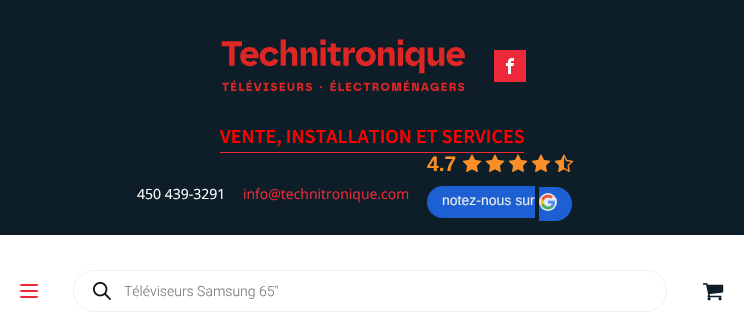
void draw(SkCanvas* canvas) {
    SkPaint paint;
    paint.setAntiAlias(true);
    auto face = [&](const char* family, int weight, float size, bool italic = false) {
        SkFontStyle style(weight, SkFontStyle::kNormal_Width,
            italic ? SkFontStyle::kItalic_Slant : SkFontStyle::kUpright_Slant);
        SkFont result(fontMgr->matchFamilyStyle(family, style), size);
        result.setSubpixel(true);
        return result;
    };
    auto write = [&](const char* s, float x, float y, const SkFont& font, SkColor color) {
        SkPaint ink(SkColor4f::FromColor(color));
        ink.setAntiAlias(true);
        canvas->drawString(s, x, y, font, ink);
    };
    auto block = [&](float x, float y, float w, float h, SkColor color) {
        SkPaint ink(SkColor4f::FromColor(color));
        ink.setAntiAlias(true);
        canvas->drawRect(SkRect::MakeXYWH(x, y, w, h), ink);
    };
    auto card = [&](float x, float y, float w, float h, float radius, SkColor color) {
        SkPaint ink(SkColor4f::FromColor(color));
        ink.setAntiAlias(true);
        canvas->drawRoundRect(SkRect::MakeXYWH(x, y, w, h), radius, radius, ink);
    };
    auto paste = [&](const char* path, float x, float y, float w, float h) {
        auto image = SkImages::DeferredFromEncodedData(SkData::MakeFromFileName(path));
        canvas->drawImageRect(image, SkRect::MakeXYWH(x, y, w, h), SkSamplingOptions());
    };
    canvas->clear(SK_ColorWHITE);
    block(0, 0, 744, 235, SkColorSetRGB(13, 30, 41));
    paste("pic1.png", 221, 39, 244, 52);
    block(494, 50, 32, 32, SkColorSetRGB(237, 41, 57));
    paste("pic2.png", 506, 58, 8, 16);
    block(220, 152, 304, 1, SkColorSetRGB(237, 41, 57));
    auto kFont1 = face("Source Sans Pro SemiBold", 600, 20);
    write("VENTE, INSTALLATION ET SERVICES", 220, 143, kFont1, SkColorSetRGB(255, 0, 0));
    auto kFont2 = face("Open Sans", 400, 14);
    write("450 439-3291", 137, 199, kFont2, SK_ColorWHITE);
    write("info@technitronique.com", 243, 199, kFont2, SkColorSetRGB(237, 41, 57));
    auto kFont3 = face("Liberation Sans", 700, 21);
    write("4.7", 427, 171, kFont3, SkColorSetRGB(251, 142, 40));
    paste("pic3.png", 462, 154, 20, 18);
    paste("pic3.png", 485, 154, 20, 18);
    paste("pic3.png", 508, 154, 20, 18);
    paste("pic3.png", 531, 154, 20, 18);
    paste("pic4.png", 554, 154, 20, 18);
    paint.setColor(SkColorSetRGB(29, 96, 212));
    canvas->drawPath(SkPathBuilder().moveTo(443, 186).lineTo(535, 186).lineTo(535, 218).lineTo(443, 218).cubicTo(434, 218, 427, 211, 427, 202).cubicTo(427, 193, 434, 186, 443, 186).close().detach(), paint);
    canvas->drawPath(SkPathBuilder().moveTo(539, 187).lineTo(555.5f, 187).cubicTo(564.5f, 187, 572, 194.5f, 572, 203.5f).lineTo(572, 204.5f).cubicTo(572, 213.5f, 564.5f, 221, 555.5f, 221).lineTo(539, 221).close().detach(), paint);
    auto kFont4 = face("Liberation Sans", 400, 14);
    write("notez-nous sur", 442, 205, kFont4, SkColorSetRGB(231, 233, 234));
    paint.setColor(SkColorSetRGB(231, 233, 234));
    canvas->drawCircle(548, 202, 9, paint);
    paste("pic5.png", 540, 194, 16, 16);
    card(20, 284, 18, 2, 1, SkColorSetRGB(237, 41, 57));
    card(20, 290, 18, 2, 1, SkColorSetRGB(237, 41, 57));
    card(20, 296, 18, 2, 1, SkColorSetRGB(237, 41, 57));
    paint.setStyle(SkPaint::kStroke_Style);
    paint.setStrokeWidth(1);
    paint.setColor(SkColorSetRGB(238, 238, 238));
    canvas->drawRoundRect(SkRect::MakeXYWH(73.5f, 270.5f, 593, 41), 20.5f, 20.5f, paint);
    card(74, 271, 592, 40, 20, SK_ColorWHITE);
    paste("pic6.png", 93, 282, 18, 18);
    auto kFont5 = face("Roboto", 300, 14);
    write("Téléviseurs Samsung 65\"", 124, 296, kFont5, SkColorSetRGB(119, 119, 119));
    paste("pic7.png", 702, 283, 22, 18);
}
